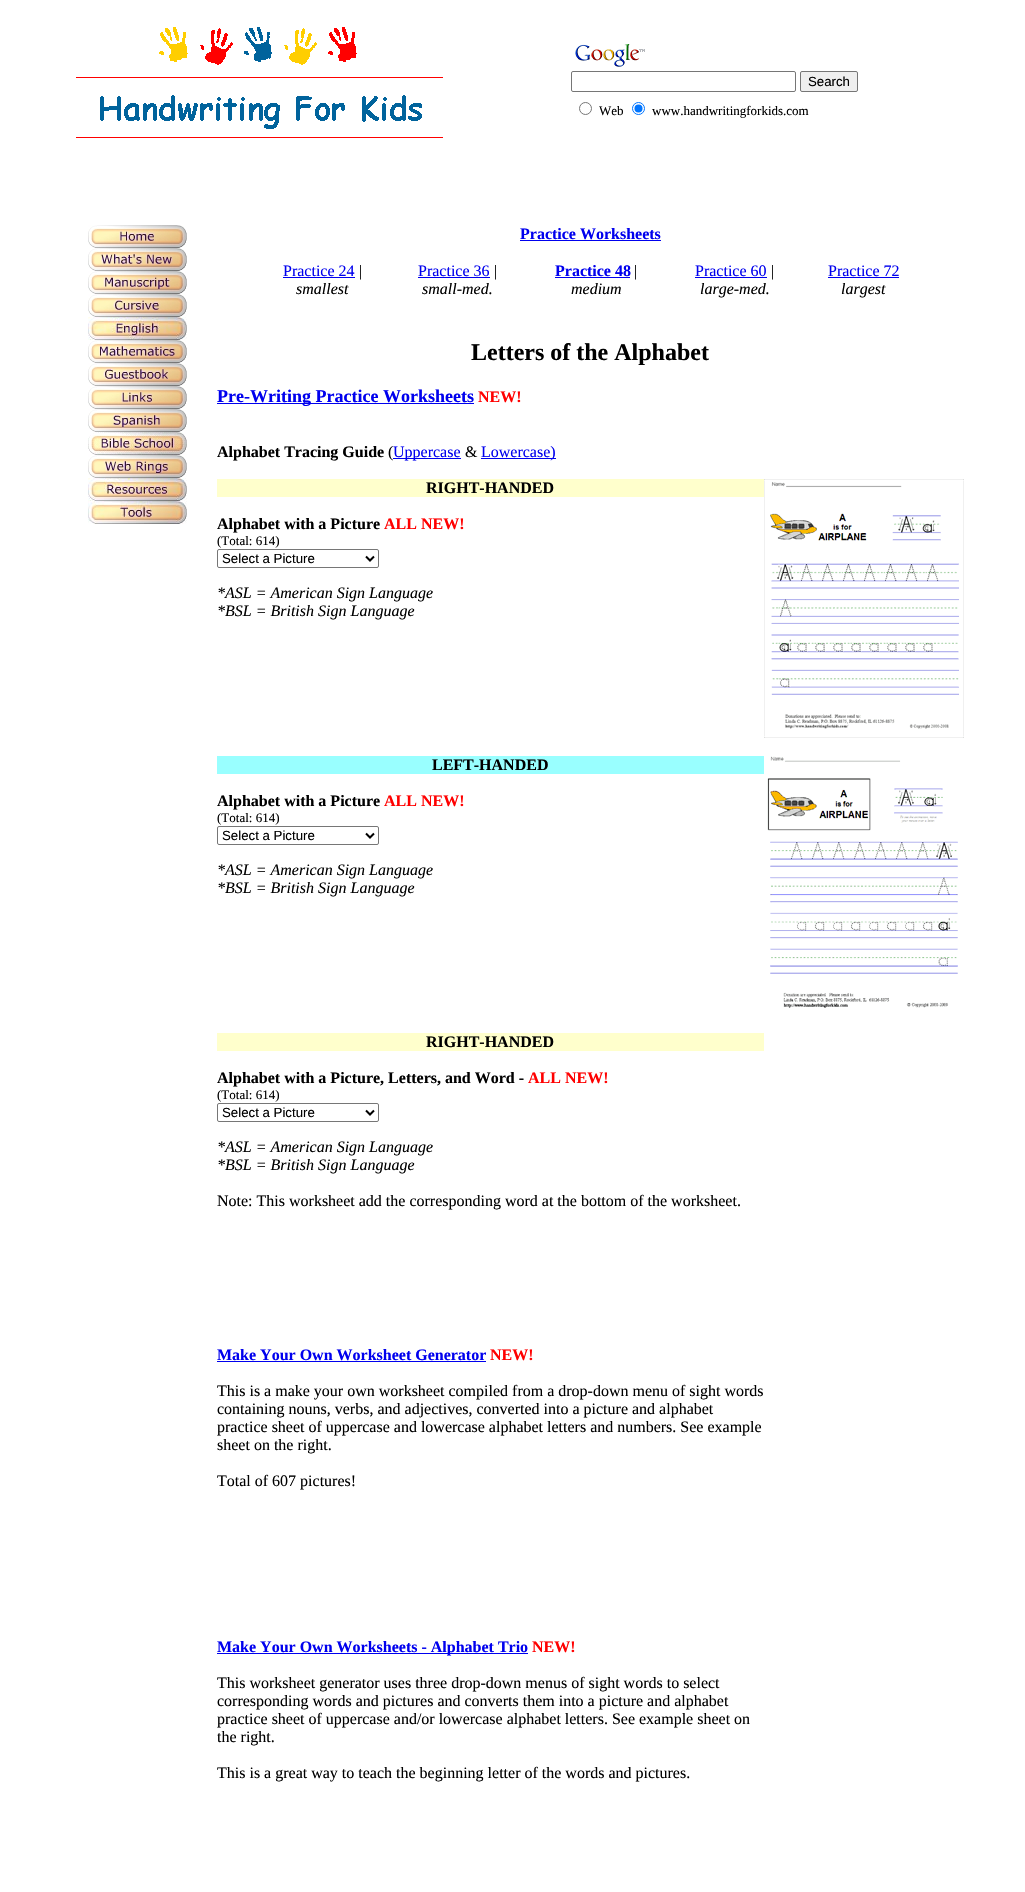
void draw(SkCanvas* canvas) {
    SkPaint paint;
    paint.setAntiAlias(true);
    auto face = [&](const char* family, int weight, float size, bool italic = false) {
        SkFontStyle style(weight, SkFontStyle::kNormal_Width,
            italic ? SkFontStyle::kItalic_Slant : SkFontStyle::kUpright_Slant);
        SkFont result(fontMgr->matchFamilyStyle(family, style), size);
        result.setSubpixel(true);
        return result;
    };
    auto write = [&](const char* s, float x, float y, const SkFont& font, SkColor color) {
        SkPaint ink(SkColor4f::FromColor(color));
        ink.setAntiAlias(true);
        canvas->drawString(s, x, y, font, ink);
    };
    auto block = [&](float x, float y, float w, float h, SkColor color) {
        SkPaint ink(SkColor4f::FromColor(color));
        ink.setAntiAlias(true);
        canvas->drawRect(SkRect::MakeXYWH(x, y, w, h), ink);
    };
    auto paste = [&](const char* path, float x, float y, float w, float h) {
        auto image = SkImages::DeferredFromEncodedData(SkData::MakeFromFileName(path));
        canvas->drawImageRect(image, SkRect::MakeXYWH(x, y, w, h), SkSamplingOptions());
    };
    canvas->clear(SK_ColorWHITE);
    paste("pic1.png", 76, 27, 367, 111);
    paste("pic2.png", 575, 44, 70, 23);
    paint.setStyle(SkPaint::kStroke_Style);
    paint.setStrokeWidth(1);
    paint.setColor(SkColorSetRGB(118, 118, 118));
    canvas->drawRoundRect(SkRect::MakeXYWH(571.5f, 71.5f, 224, 20), 1.5f, 1.5f, paint);
    paint.setStyle(SkPaint::kFill_Style);
    paint.setColor(SkColorSetRGB(239, 239, 239));
    canvas->drawRoundRect(SkRect::MakeXYWH(800.5f, 71.5f, 57, 20), 1.5f, 1.5f, paint);
    paint.setStyle(SkPaint::kStroke_Style);
    paint.setColor(SkColorSetRGB(118, 118, 118));
    canvas->drawRoundRect(SkRect::MakeXYWH(800.5f, 71.5f, 57, 20), 1.5f, 1.5f, paint);
    auto kFont1 = face("Liberation Sans", 400, 13.25f);
    write("Search", 808, 86, kFont1, SK_ColorBLACK);
    canvas->drawCircle(585.5f, 108.5f, 6, paint);
    auto kFont2 = face("Liberation Serif", 400, 13);
    write("Web", 599, 115, kFont2, SK_ColorBLACK);
    paint.setColor(SkColorSetRGB(0, 117, 255));
    canvas->drawCircle(638.5f, 108.5f, 6, paint);
    paint.setStyle(SkPaint::kFill_Style);
    canvas->drawCircle(638.5f, 108.5f, 4, paint);
    write("www.handwritingforkids.com", 652, 115, kFont2, SK_ColorBLACK);
    paste("pic3.png", 88, 225, 99, 23);
    paste("pic4.png", 88, 248, 99, 23);
    paste("pic5.png", 88, 271, 99, 23);
    paste("pic6.png", 88, 294, 99, 23);
    paste("pic7.png", 88, 317, 99, 23);
    paste("pic8.png", 88, 340, 99, 23);
    paste("pic9.png", 88, 363, 99, 23);
    paste("pic10.png", 88, 386, 99, 23);
    paste("pic11.png", 88, 409, 99, 23);
    paste("pic12.png", 88, 432, 99, 23);
    paste("pic13.png", 88, 455, 99, 23);
    paste("pic14.png", 88, 478, 99, 23);
    paste("pic15.png", 88, 501, 99, 23);
    auto kFont3 = face("Liberation Serif", 700, 16);
    write("Practice Worksheets", 520, 239, kFont3, SkColorSetRGB(0, 0, 238));
    block(520, 240, 141, 1, SkColorSetRGB(0, 0, 238));
    auto kFont4 = face("Liberation Serif", 400, 16);
    write("Practice 24", 283, 276, kFont4, SkColorSetRGB(0, 0, 238));
    block(283, 277, 72, 1, SkColorSetRGB(0, 0, 238));
    write("|", 359, 276, kFont4, SK_ColorBLACK);
    auto kFont5 = face("Liberation Serif", 400, 16, true);
    write("smallest", 296, 294, kFont5, SK_ColorBLACK);
    write("Practice 36", 418, 276, kFont4, SkColorSetRGB(0, 0, 238));
    block(418, 277, 72, 1, SkColorSetRGB(0, 0, 238));
    write("|", 494, 276, kFont4, SK_ColorBLACK);
    write("small-med.", 422, 294, kFont5, SK_ColorBLACK);
    write("Practice 48", 555, 276, kFont3, SkColorSetRGB(0, 0, 238));
    block(555, 277, 75, 1, SkColorSetRGB(0, 0, 238));
    write("|", 634, 276, kFont4, SK_ColorBLACK);
    write("medium", 571, 294, kFont5, SK_ColorBLACK);
    write("Practice 60", 695, 276, kFont4, SkColorSetRGB(0, 0, 238));
    block(695, 277, 72, 1, SkColorSetRGB(0, 0, 238));
    write("|", 771, 276, kFont4, SK_ColorBLACK);
    write("large-med.", 700, 294, kFont5, SK_ColorBLACK);
    write("Practice 72", 828, 276, kFont4, SkColorSetRGB(0, 0, 238));
    block(828, 277, 71, 1, SkColorSetRGB(0, 0, 238));
    write("largest", 841, 294, kFont5, SK_ColorBLACK);
    auto kFont6 = face("Liberation Serif", 700, 24);
    write("Letters of the Alphabet", 471, 360, kFont6, SK_ColorBLACK);
    block(217, 403, 257, 1, SkColorSetRGB(0, 0, 238));
    auto kFont7 = face("Liberation Serif", 700, 18);
    write("Pre-Writing Practice Worksheets", 217, 402, kFont7, SkColorSetRGB(0, 0, 238));
    write("NEW!", 478, 402, kFont3, SkColorSetRGB(255, 0, 0));
    write("Alphabet Tracing Guide", 217, 457, kFont3, SK_ColorBLACK);
    write("(", 388, 457, kFont4, SK_ColorBLACK);
    block(393, 458, 68, 1, SkColorSetRGB(0, 0, 238));
    write("Uppercase", 393, 457, kFont4, SkColorSetRGB(0, 0, 238));
    write("&", 465, 457, kFont4, SK_ColorBLACK);
    block(481, 458, 75, 1, SkColorSetRGB(0, 0, 238));
    write("Lowercase)", 481, 457, kFont4, SkColorSetRGB(0, 0, 238));
    block(217, 479, 547, 18, SkColorSetRGB(255, 255, 204));
    write("RIGHT-HANDED", 426, 493, kFont3, SK_ColorBLACK);
    write("Alphabet with a Picture", 217, 529, kFont3, SK_ColorBLACK);
    write("ALL NEW!", 384, 529, kFont3, SkColorSetRGB(255, 0, 0));
    write("(Total: 614)", 217, 545, kFont2, SK_ColorBLACK);
    paint.setStyle(SkPaint::kStroke_Style);
    paint.setColor(SkColorSetRGB(118, 118, 118));
    canvas->drawRoundRect(SkRect::MakeXYWH(217.5f, 549.5f, 161, 18), 1.5f, 1.5f, paint);
    paint.setStrokeWidth(2);
    paint.setColor(SK_ColorBLACK);
    canvas->drawPath(SkPathBuilder().moveTo(366, 556.5f).lineTo(370, 560.5f).lineTo(374, 556.5f).detach(), paint);
    write("Select a Picture", 222, 563, kFont1, SK_ColorBLACK);
    write("*ASL = American Sign Language", 217, 598, kFont5, SK_ColorBLACK);
    write("*BSL = British Sign Language", 217, 616, kFont5, SK_ColorBLACK);
    paste("pic16.png", 764, 479, 200, 259);
    block(217, 756, 547, 18, SkColorSetRGB(153, 255, 255));
    write("LEFT-HANDED", 432, 770, kFont3, SK_ColorBLACK);
    write("Alphabet with a Picture", 217, 806, kFont3, SK_ColorBLACK);
    write("ALL NEW!", 384, 806, kFont3, SkColorSetRGB(255, 0, 0));
    write("(Total: 614)", 217, 822, kFont2, SK_ColorBLACK);
    paint.setStrokeWidth(1);
    paint.setColor(SkColorSetRGB(118, 118, 118));
    canvas->drawRoundRect(SkRect::MakeXYWH(217.5f, 826.5f, 161, 18), 1.5f, 1.5f, paint);
    paint.setStrokeWidth(2);
    paint.setColor(SK_ColorBLACK);
    canvas->drawPath(SkPathBuilder().moveTo(366, 833.5f).lineTo(370, 837.5f).lineTo(374, 833.5f).detach(), paint);
    write("Select a Picture", 222, 840, kFont1, SK_ColorBLACK);
    write("*ASL = American Sign Language", 217, 875, kFont5, SK_ColorBLACK);
    write("*BSL = British Sign Language", 217, 893, kFont5, SK_ColorBLACK);
    paste("pic17.png", 767, 756, 191, 252);
    block(217, 1033, 547, 18, SkColorSetRGB(255, 255, 204));
    write("RIGHT-HANDED", 426, 1047, kFont3, SK_ColorBLACK);
    write("Alphabet with a Picture, Letters, and Word -", 217, 1083, kFont3, SK_ColorBLACK);
    write("ALL NEW!", 528, 1083, kFont3, SkColorSetRGB(255, 0, 0));
    write("(Total: 614)", 217, 1099, kFont2, SK_ColorBLACK);
    paint.setStrokeWidth(1);
    paint.setColor(SkColorSetRGB(118, 118, 118));
    canvas->drawRoundRect(SkRect::MakeXYWH(217.5f, 1103.5f, 161, 18), 1.5f, 1.5f, paint);
    paint.setStrokeWidth(2);
    paint.setColor(SK_ColorBLACK);
    canvas->drawPath(SkPathBuilder().moveTo(366, 1110.5f).lineTo(370, 1114.5f).lineTo(374, 1110.5f).detach(), paint);
    write("Select a Picture", 222, 1117, kFont1, SK_ColorBLACK);
    write("*ASL = American Sign Language", 217, 1152, kFont5, SK_ColorBLACK);
    write("*BSL = British Sign Language", 217, 1170, kFont5, SK_ColorBLACK);
    write("Note: This worksheet add the corresponding word at the bottom of the worksheet.", 217, 1206, kFont4, SK_ColorBLACK);
    write("Make Your Own Worksheet Generator", 217, 1360, kFont3, SkColorSetRGB(0, 0, 238));
    block(217, 1361, 269, 1, SkColorSetRGB(0, 0, 238));
    write("NEW!", 490, 1360, kFont3, SkColorSetRGB(255, 0, 0));
    write("This is a make your own worksheet compiled from a drop-down menu of sight words", 217, 1396, kFont4, SK_ColorBLACK);
    write("containing nouns, verbs, and adjectives, converted into a picture and alphabet", 217, 1414, kFont4, SK_ColorBLACK);
    write("practice sheet of uppercase and lowercase alphabet letters and numbers. See example", 217, 1432, kFont4, SK_ColorBLACK);
    write("sheet on the right.", 217, 1450, kFont4, SK_ColorBLACK);
    write("Total of 607 pictures!", 217, 1486, kFont4, SK_ColorBLACK);
    block(217, 1653, 311, 1, SkColorSetRGB(0, 0, 238));
    write("Make Your Own Worksheets - Alphabet Trio", 217, 1652, kFont3, SkColorSetRGB(0, 0, 238));
    write("NEW!", 532, 1652, kFont3, SkColorSetRGB(255, 0, 0));
    write("This worksheet generator uses three drop-down menus of sight words to select", 217, 1688, kFont4, SK_ColorBLACK);
    write("corresponding words and pictures and converts them into a picture and alphabet", 217, 1706, kFont4, SK_ColorBLACK);
    write("practice sheet of uppercase and/or lowercase alphabet letters. See example sheet on", 217, 1724, kFont4, SK_ColorBLACK);
    write("the right.", 217, 1742, kFont4, SK_ColorBLACK);
    write("This is a great way to teach the beginning letter of the words and pictures.", 217, 1778, kFont4, SK_ColorBLACK);
}
